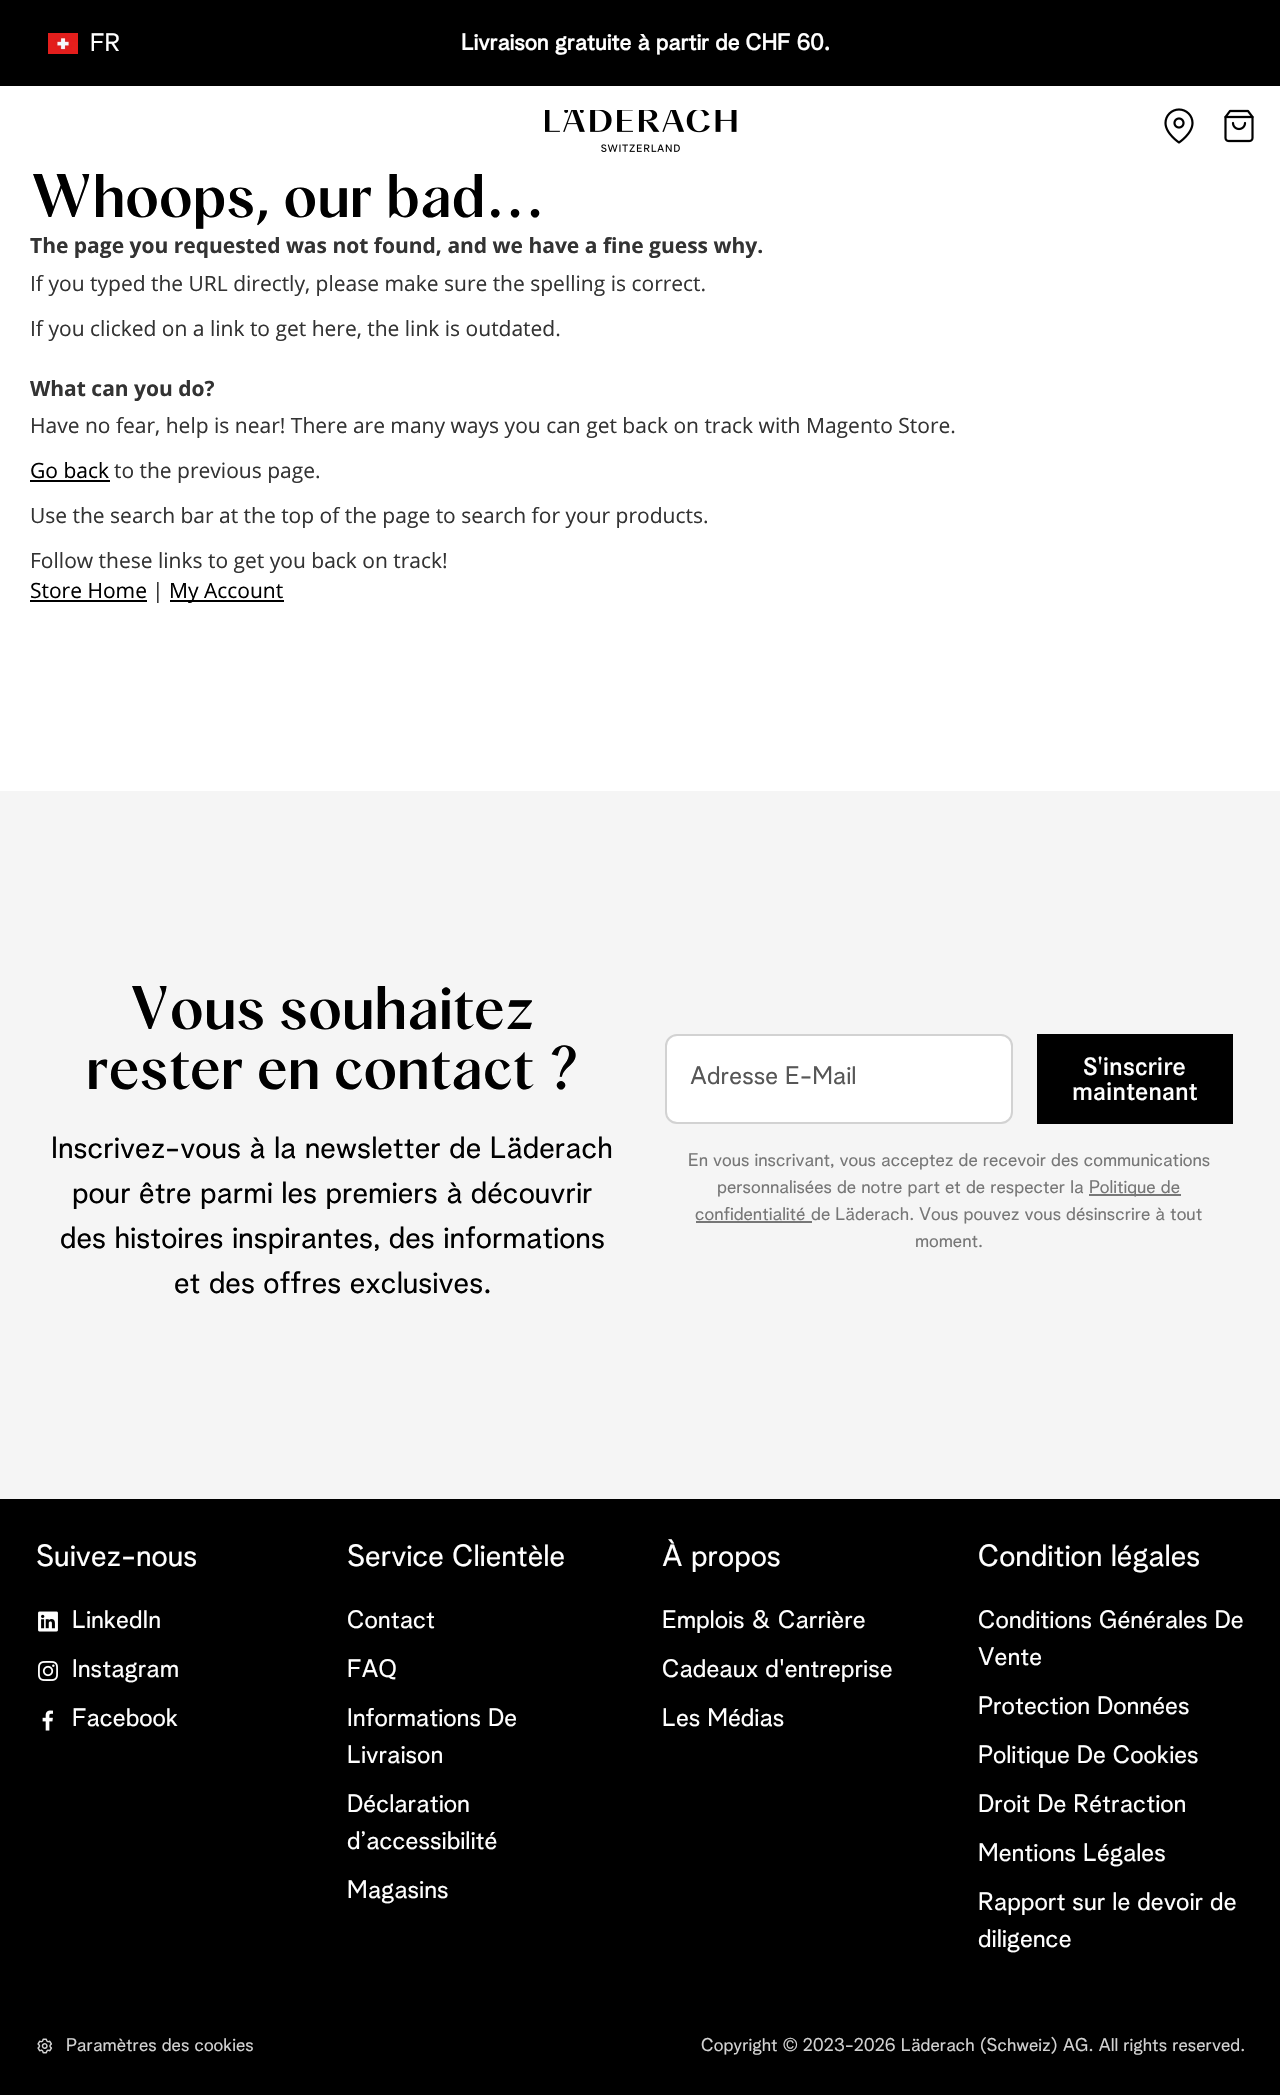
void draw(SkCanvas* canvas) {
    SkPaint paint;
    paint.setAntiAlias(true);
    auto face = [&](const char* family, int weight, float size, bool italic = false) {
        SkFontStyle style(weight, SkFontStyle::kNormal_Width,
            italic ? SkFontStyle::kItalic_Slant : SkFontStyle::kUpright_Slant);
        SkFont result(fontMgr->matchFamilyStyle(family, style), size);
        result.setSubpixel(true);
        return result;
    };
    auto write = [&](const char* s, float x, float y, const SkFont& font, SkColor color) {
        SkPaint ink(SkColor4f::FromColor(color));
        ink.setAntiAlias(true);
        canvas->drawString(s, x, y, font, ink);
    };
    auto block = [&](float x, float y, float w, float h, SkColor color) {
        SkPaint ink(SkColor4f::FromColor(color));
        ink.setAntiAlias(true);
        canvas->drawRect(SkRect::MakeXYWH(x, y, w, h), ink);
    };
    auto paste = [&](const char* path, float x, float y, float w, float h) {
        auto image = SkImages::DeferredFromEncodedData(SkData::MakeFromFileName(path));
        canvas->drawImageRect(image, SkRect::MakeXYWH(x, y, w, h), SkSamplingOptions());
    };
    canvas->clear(SK_ColorWHITE);
    block(0, 0, 1280, 86, SK_ColorBLACK);
    paste("pic1.png", 48, 33, 30, 21);
    auto kFont1 = face("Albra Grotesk", 400, 24.75f);
    write("FR", 90, 51, kFont1, SK_ColorWHITE);
    auto kFont2 = face("Albra Grotesk", 700, 22.5f);
    write("Livraison gratuite à partir de CHF 60.", 461, 50, kFont2, SK_ColorWHITE);
    paste("pic2.png", 545, 110, 192, 42);
    paste("pic3.png", 1164, 108, 30, 36);
    paste("pic4.png", 1224, 109, 30, 34);
    auto kFont3 = face("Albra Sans", 500, 60);
    write("Whoops, our bad...", 30, 217, kFont3, SK_ColorBLACK);
    auto kFont4 = face("Open Sans", 700, 21);
    write("The page you requested was not found, and we have a fine guess why.", 30, 253, kFont4, SkColorSetRGB(51, 51, 51));
    auto kFont5 = face("Open Sans", 400, 21);
    write("If you typed the URL directly, please make sure the spelling is correct.", 30, 291, kFont5, SkColorSetRGB(51, 51, 51));
    write("If you clicked on a link to get here, the link is outdated.", 30, 336, kFont5, SkColorSetRGB(51, 51, 51));
    write("What can you do?", 30, 396, kFont4, SkColorSetRGB(51, 51, 51));
    write("Have no fear, help is near! There are many ways you can get back on track with Magento Store.", 30, 433, kFont5, SkColorSetRGB(51, 51, 51));
    write("Go back", 30, 478, kFont5, SK_ColorBLACK);
    block(30, 480, 80, 2, SK_ColorBLACK);
    write("to the previous page.", 114, 478, kFont5, SkColorSetRGB(51, 51, 51));
    write("Use the search bar at the top of the page to search for your products.", 30, 523, kFont5, SkColorSetRGB(51, 51, 51));
    write("Follow these links to get you back on track!", 30, 568, kFont5, SkColorSetRGB(51, 51, 51));
    write("Store Home", 30, 598, kFont5, SK_ColorBLACK);
    block(30, 600, 117, 2, SK_ColorBLACK);
    write("|", 152, 598, kFont5, SkColorSetRGB(51, 51, 51));
    block(170, 600, 114, 2, SK_ColorBLACK);
    write("My Account", 169, 598, kFont5, SK_ColorBLACK);
    block(0, 791, 1280, 708, SkColorSetRGB(245, 245, 245));
    write("Vous souhaitez", 129, 1029, kFont3, SK_ColorBLACK);
    write("rester en contact ?", 86, 1089, kFont3, SK_ColorBLACK);
    auto kFont6 = face("Albra Grotesk", 400, 30);
    write("Inscrivez-vous à la newsletter de Läderach", 51, 1158, kFont6, SK_ColorBLACK);
    write("pour être parmi les premiers à découvrir", 72, 1203, kFont6, SK_ColorBLACK);
    write("des histoires inspirantes, des informations", 60, 1248, kFont6, SK_ColorBLACK);
    write("et des offres exclusives.", 174, 1293, kFont6, SK_ColorBLACK);
    paint.setColor(SK_ColorWHITE);
    canvas->drawRoundRect(SkRect::MakeXYWH(666, 1035, 346, 88), 11, 11, paint);
    paint.setStyle(SkPaint::kStroke_Style);
    paint.setStrokeWidth(2);
    paint.setColor(SkColorSetRGB(210, 210, 210));
    canvas->drawRoundRect(SkRect::MakeXYWH(666, 1035, 346, 88), 11, 11, paint);
    write("Adresse E-Mail", 690, 1084, kFont1, SkColorSetRGB(87, 87, 87));
    block(1037, 1034, 196, 90, SK_ColorBLACK);
    auto kFont7 = face("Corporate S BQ", 500, 24.75f);
    write("S'inscrire", 1083, 1075, kFont7, SK_ColorWHITE);
    write("maintenant", 1072, 1100, kFont7, SK_ColorWHITE);
    auto kFont8 = face("Albra Grotesk", 400, 18);
    write("En vous inscrivant, vous acceptez de recevoir des communications", 688, 1166, kFont8, SkColorSetRGB(119, 119, 119));
    write("personnalisées de notre part et de respecter la", 717, 1193, kFont8, SkColorSetRGB(119, 119, 119));
    block(1089, 1194, 92, 2, SkColorSetRGB(119, 119, 119));
    write("Politique de", 1089, 1193, kFont8, SkColorSetRGB(119, 119, 119));
    write("confidentialité", 695, 1220, kFont8, SkColorSetRGB(119, 119, 119));
    block(696, 1221, 116, 2, SkColorSetRGB(119, 119, 119));
    write("de Läderach. Vous pouvez vous désinscrire à tout", 811, 1220, kFont8, SkColorSetRGB(119, 119, 119));
    write("moment.", 915, 1247, kFont8, SkColorSetRGB(119, 119, 119));
    block(0, 1499, 1280, 596, SK_ColorBLACK);
    write("Suivez-nous", 36, 1566, kFont6, SK_ColorWHITE);
    paste("pic5.png", 38, 1611, 20, 21);
    write("LinkedIn", 72, 1628, kFont1, SK_ColorWHITE);
    paste("pic6.png", 38, 1661, 20, 20);
    write("Instagram", 72, 1677, kFont1, SK_ColorWHITE);
    paste("pic7.png", 42, 1710, 11, 21);
    write("Facebook", 72, 1726, kFont1, SK_ColorWHITE);
    write("Service Clientèle", 347, 1566, kFont6, SK_ColorWHITE);
    write("Contact", 347, 1628, kFont1, SK_ColorWHITE);
    write("FAQ", 347, 1677, kFont1, SK_ColorWHITE);
    write("Informations De", 347, 1726, kFont1, SK_ColorWHITE);
    write("Livraison", 347, 1763, kFont1, SK_ColorWHITE);
    write("Déclaration", 347, 1812, kFont1, SK_ColorWHITE);
    write("d’accessibilité", 347, 1849, kFont1, SK_ColorWHITE);
    write("Magasins", 347, 1898, kFont1, SK_ColorWHITE);
    write("À propos", 662, 1566, kFont6, SK_ColorWHITE);
    write("Emplois & Carrière", 662, 1628, kFont1, SK_ColorWHITE);
    write("Cadeaux d'entreprise", 662, 1677, kFont1, SK_ColorWHITE);
    write("Les Médias", 662, 1726, kFont1, SK_ColorWHITE);
    write("Condition légales", 978, 1566, kFont6, SK_ColorWHITE);
    write("Conditions Générales De", 978, 1628, kFont1, SK_ColorWHITE);
    write("Vente", 978, 1665, kFont1, SK_ColorWHITE);
    write("Protection Données", 978, 1714, kFont1, SK_ColorWHITE);
    write("Politique De Cookies", 978, 1763, kFont1, SK_ColorWHITE);
    write("Droit De Rétraction", 978, 1812, kFont1, SK_ColorWHITE);
    write("Mentions Légales", 978, 1861, kFont1, SK_ColorWHITE);
    write("Rapport sur le devoir de", 978, 1910, kFont1, SK_ColorWHITE);
    write("diligence", 978, 1947, kFont1, SK_ColorWHITE);
    paste("pic8.png", 37, 2038, 16, 16);
    write("Paramètres des cookies", 66, 2051, kFont8, SkColorSetRGB(210, 210, 210));
    write("Copyright © 2023-2026 Läderach (Schweiz) AG. All rights reserved.", 701, 2051, kFont8, SkColorSetRGB(210, 210, 210));
}
